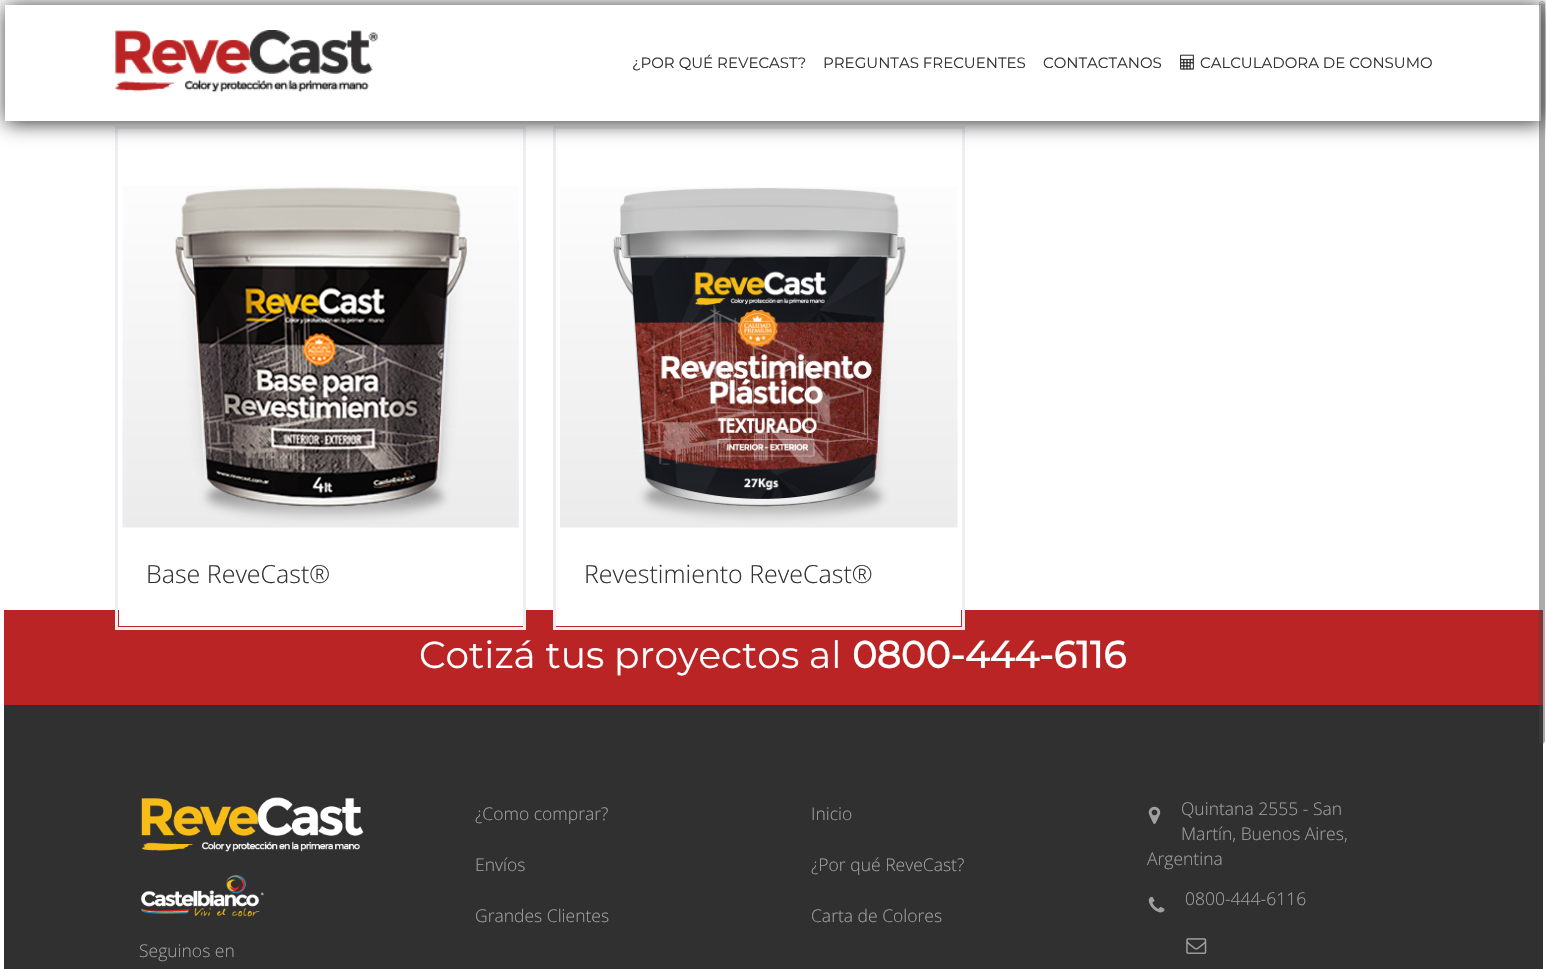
void draw(SkCanvas* canvas) {
    SkPaint paint;
    paint.setAntiAlias(true);
    auto face = [&](const char* family, int weight, float size, bool italic = false) {
        SkFontStyle style(weight, SkFontStyle::kNormal_Width,
            italic ? SkFontStyle::kItalic_Slant : SkFontStyle::kUpright_Slant);
        SkFont result(fontMgr->matchFamilyStyle(family, style), size);
        result.setSubpixel(true);
        return result;
    };
    auto write = [&](const char* s, float x, float y, const SkFont& font, SkColor color) {
        SkPaint ink(SkColor4f::FromColor(color));
        ink.setAntiAlias(true);
        canvas->drawString(s, x, y, font, ink);
    };
    auto block = [&](float x, float y, float w, float h, SkColor color) {
        SkPaint ink(SkColor4f::FromColor(color));
        ink.setAntiAlias(true);
        canvas->drawRect(SkRect::MakeXYWH(x, y, w, h), ink);
    };
    auto card = [&](float x, float y, float w, float h, float radius, SkColor color) {
        SkPaint ink(SkColor4f::FromColor(color));
        ink.setAntiAlias(true);
        canvas->drawRoundRect(SkRect::MakeXYWH(x, y, w, h), radius, radius, ink);
    };
    auto paste = [&](const char* path, float x, float y, float w, float h) {
        auto image = SkImages::DeferredFromEncodedData(SkData::MakeFromFileName(path));
        canvas->drawImageRect(image, SkRect::MakeXYWH(x, y, w, h), SkSamplingOptions());
    };
    canvas->clear(SK_ColorWHITE);
    block(4, 610, 1539, 95, SkColorSetRGB(186, 36, 37));
    paint.setStyle(SkPaint::kStroke_Style);
    paint.setStrokeWidth(3);
    paint.setColor(SkColorSetRGB(237, 238, 242));
    canvas->drawRect(SkRect::MakeXYWH(116.5f, 127.5f, 408, 501), paint);
    canvas->drawRect(SkRect::MakeXYWH(554.5f, 127.5f, 409, 501), paint);
    canvas->save();
    canvas->clipPath(SkPathBuilder(SkPathFillType::kEvenOdd).moveTo(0, 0).lineTo(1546, 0).lineTo(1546, 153).lineTo(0, 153).close().moveTo(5, 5).lineTo(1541, 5).lineTo(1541, 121).lineTo(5, 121).close().detach(), true);
    paint.setStyle(SkPaint::kFill_Style);
    paint.setColor(SkColorSetRGB(51, 51, 51));
    paint.setMaskFilter(SkMaskFilter::MakeBlur(kNormal_SkBlurStyle, 9.5f));
    canvas->drawRect(SkRect::MakeXYWH(6, 6, 1537, 117), paint);
    paint.setMaskFilter(nullptr);
    canvas->restore();
    paste("pic1.png", 115, 30, 263, 63);
    auto kFont1 = face("Montserrat", 100, 15);
    write("¿POR QUÉ REVECAST?", 632, 68, kFont1, SkColorSetRGB(51, 51, 51));
    write("PREGUNTAS FRECUENTES", 823, 68, kFont1, SkColorSetRGB(51, 51, 51));
    write("CONTACTANOS", 1043, 68, kFont1, SkColorSetRGB(51, 51, 51));
    paste("pic2.png", 1180, 54, 14, 16);
    write("CALCULADORA DE CONSUMO", 1200, 68, kFont1, SkColorSetRGB(51, 51, 51));
    paste("pic3.png", 122, 186, 397, 342);
    block(119, 610, 404, 16, SK_ColorWHITE);
    auto kFont2 = face("Open Sans", 300, 25);
    write("Base ReveCast®", 146, 583, kFont2, SkColorSetRGB(51, 51, 51));
    paste("pic4.png", 560, 187, 398, 341);
    block(556, 610, 405, 16, SK_ColorWHITE);
    write("Revestimiento ReveCast®", 584, 583, kFont2, SkColorSetRGB(51, 51, 51));
    auto kFont3 = face("Montserrat", 100, 37.5f);
    write("Cotizá tus proyectos al", 419, 668, kFont3, SK_ColorWHITE);
    auto kFont4 = face("Montserrat", 700, 37.5f);
    write("0800-444-6116", 852, 668, kFont4, SK_ColorWHITE);
    block(4, 705, 1539, 264, SkColorSetRGB(48, 48, 48));
    auto kFont5 = face("Open Sans", 300, 17.5f);
    write("¿Como comprar?", 475, 820, kFont5, SkColorSetRGB(160, 160, 160));
    write("Envíos", 475, 871, kFont5, SkColorSetRGB(160, 160, 160));
    write("Grandes Clientes", 475, 922, kFont5, SkColorSetRGB(160, 160, 160));
    write("Inicio", 811, 820, kFont5, SkColorSetRGB(160, 160, 160));
    write("¿Por qué ReveCast?", 811, 871, kFont5, SkColorSetRGB(160, 160, 160));
    write("Carta de Colores", 811, 922, kFont5, SkColorSetRGB(160, 160, 160));
    paste("pic5.png", 1148, 806, 13, 18);
    write("Quintana 2555 - San", 1181, 815, kFont5, SkColorSetRGB(160, 160, 160));
    write("Martín, Buenos Aires,", 1181, 840, kFont5, SkColorSetRGB(160, 160, 160));
    write("Argentina", 1147, 865, kFont5, SkColorSetRGB(160, 160, 160));
    paste("pic6.png", 1148, 896, 17, 17);
    write("0800-444-6116", 1185, 905, kFont5, SkColorSetRGB(160, 160, 160));
    paste("pic7.png", 1186, 938, 21, 16);
    paste("pic8.png", 141, 797, 223, 55);
    paste("pic9.png", 141, 875, 123, 42);
    write("Seguinos en", 139, 957, kFont5, SkColorSetRGB(160, 160, 160));
    card(1540, 3, 4, 740, 2, SkColorSetARGB(115, 66, 66, 66));
    paint.setStyle(SkPaint::kStroke_Style);
    paint.setStrokeWidth(1);
    paint.setColor(SkColorSetARGB(115, 66, 66, 66));
    canvas->drawRoundRect(SkRect::MakeXYWH(1539.5f, 1.5f, 5, 742), 2.5f, 2.5f, paint);
}
